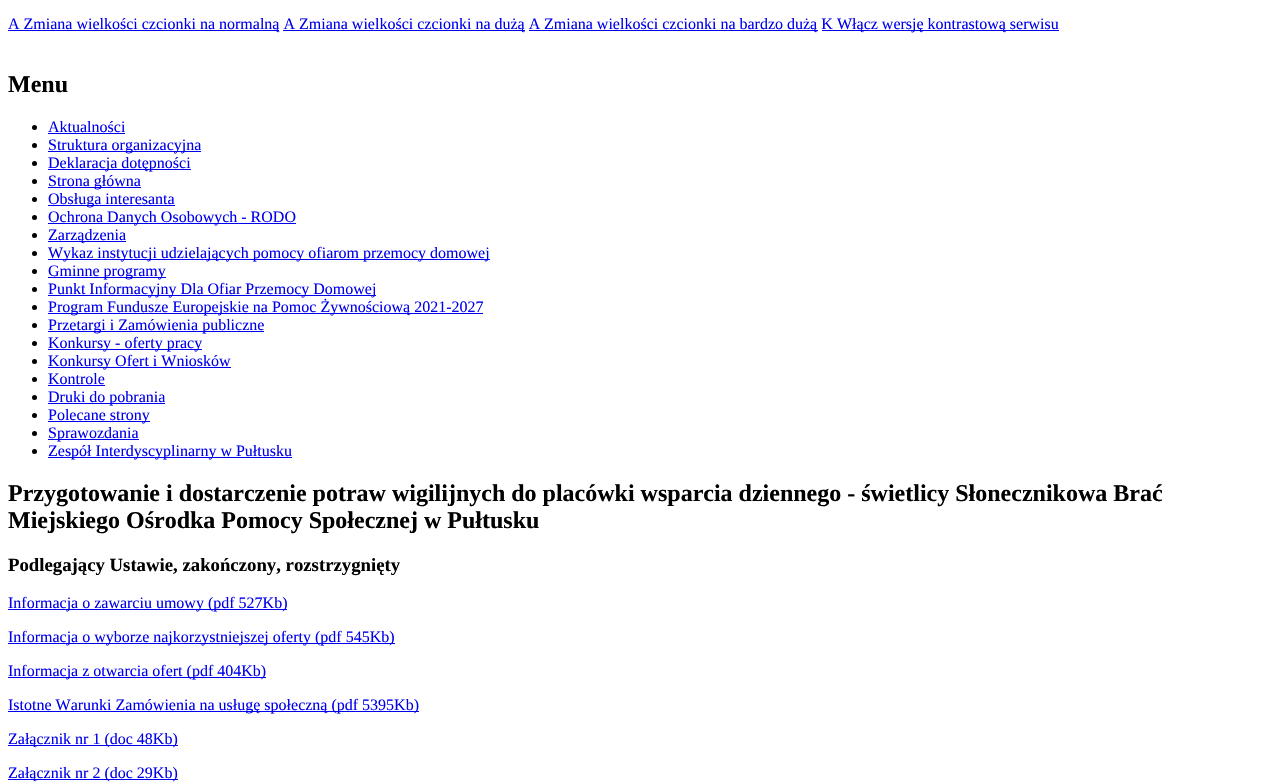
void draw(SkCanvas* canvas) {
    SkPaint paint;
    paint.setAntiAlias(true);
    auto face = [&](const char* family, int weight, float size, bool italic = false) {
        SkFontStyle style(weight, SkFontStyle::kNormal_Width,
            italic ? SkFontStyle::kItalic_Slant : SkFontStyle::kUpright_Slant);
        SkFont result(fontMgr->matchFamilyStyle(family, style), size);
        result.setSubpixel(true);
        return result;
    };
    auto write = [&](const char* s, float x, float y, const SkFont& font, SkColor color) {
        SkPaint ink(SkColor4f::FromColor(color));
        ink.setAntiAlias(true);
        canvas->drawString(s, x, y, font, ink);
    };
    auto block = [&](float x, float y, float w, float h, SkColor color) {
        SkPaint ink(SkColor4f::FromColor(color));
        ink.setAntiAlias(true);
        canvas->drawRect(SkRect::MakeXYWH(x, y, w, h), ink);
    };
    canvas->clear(SK_ColorWHITE);
    block(8, 30, 271, 1, SkColorSetRGB(0, 0, 238));
    auto kFont1 = face("Liberation Serif", 400, 16);
    write("A Zmiana wielkości czcionki na normalną A", 8, 29, kFont1, SkColorSetRGB(0, 0, 238));
    block(283, 30, 242, 1, SkColorSetRGB(0, 0, 238));
    write("Zmiana wielkości czcionki na dużą A", 299, 29, kFont1, SkColorSetRGB(0, 0, 238));
    block(529, 30, 289, 1, SkColorSetRGB(0, 0, 238));
    write("Zmiana wielkości czcionki na bardzo dużą K", 544, 29, kFont1, SkColorSetRGB(0, 0, 238));
    block(822, 30, 237, 1, SkColorSetRGB(0, 0, 238));
    write("Włącz wersję kontrastową serwisu", 837, 29, kFont1, SkColorSetRGB(0, 0, 238));
    auto kFont2 = face("Liberation Serif", 700, 24);
    write("Menu", 8, 92, kFont2, SK_ColorBLACK);
    paint.setColor(SK_ColorBLACK);
    canvas->drawCircle(34.5f, 127.5f, 2.5f, paint);
    write("Aktualności", 48, 132, kFont1, SkColorSetRGB(0, 0, 238));
    block(48, 133, 77, 1, SkColorSetRGB(0, 0, 238));
    canvas->drawCircle(34.5f, 145.5f, 2.5f, paint);
    block(48, 151, 153, 1, SkColorSetRGB(0, 0, 238));
    write("Struktura organizacyjna", 48, 150, kFont1, SkColorSetRGB(0, 0, 238));
    canvas->drawCircle(34.5f, 163.5f, 2.5f, paint);
    block(48, 169, 143, 1, SkColorSetRGB(0, 0, 238));
    write("Deklaracja dotępności", 48, 168, kFont1, SkColorSetRGB(0, 0, 238));
    canvas->drawCircle(34.5f, 181.5f, 2.5f, paint);
    block(48, 187, 93, 1, SkColorSetRGB(0, 0, 238));
    write("Strona główna", 48, 186, kFont1, SkColorSetRGB(0, 0, 238));
    canvas->drawCircle(34.5f, 199.5f, 2.5f, paint);
    block(48, 205, 127, 1, SkColorSetRGB(0, 0, 238));
    write("Obsługa interesanta", 48, 204, kFont1, SkColorSetRGB(0, 0, 238));
    canvas->drawCircle(34.5f, 217.5f, 2.5f, paint);
    block(48, 223, 248, 1, SkColorSetRGB(0, 0, 238));
    write("Ochrona Danych Osobowych - RODO", 48, 222, kFont1, SkColorSetRGB(0, 0, 238));
    canvas->drawCircle(34.5f, 235.5f, 2.5f, paint);
    block(48, 241, 78, 1, SkColorSetRGB(0, 0, 238));
    write("Zarządzenia", 48, 240, kFont1, SkColorSetRGB(0, 0, 238));
    canvas->drawCircle(34.5f, 253.5f, 2.5f, paint);
    block(48, 259, 442, 1, SkColorSetRGB(0, 0, 238));
    write("Wykaz instytucji udzielających pomocy ofiarom przemocy domowej", 48, 258, kFont1, SkColorSetRGB(0, 0, 238));
    canvas->drawCircle(34.5f, 271.5f, 2.5f, paint);
    block(48, 277, 118, 1, SkColorSetRGB(0, 0, 238));
    write("Gminne programy", 48, 276, kFont1, SkColorSetRGB(0, 0, 238));
    canvas->drawCircle(34.5f, 289.5f, 2.5f, paint);
    block(48, 295, 328, 1, SkColorSetRGB(0, 0, 238));
    write("Punkt Informacyjny Dla Ofiar Przemocy Domowej", 48, 294, kFont1, SkColorSetRGB(0, 0, 238));
    canvas->drawCircle(34.5f, 307.5f, 2.5f, paint);
    block(48, 313, 435, 1, SkColorSetRGB(0, 0, 238));
    write("Program Fundusze Europejskie na Pomoc Żywnościową 2021-2027", 48, 312, kFont1, SkColorSetRGB(0, 0, 238));
    canvas->drawCircle(34.5f, 325.5f, 2.5f, paint);
    block(48, 331, 216, 1, SkColorSetRGB(0, 0, 238));
    write("Przetargi i Zamówienia publiczne", 48, 330, kFont1, SkColorSetRGB(0, 0, 238));
    canvas->drawCircle(34.5f, 343.5f, 2.5f, paint);
    block(48, 349, 154, 1, SkColorSetRGB(0, 0, 238));
    write("Konkursy - oferty pracy", 48, 348, kFont1, SkColorSetRGB(0, 0, 238));
    canvas->drawCircle(34.5f, 361.5f, 2.5f, paint);
    block(48, 367, 183, 1, SkColorSetRGB(0, 0, 238));
    write("Konkursy Ofert i Wniosków", 48, 366, kFont1, SkColorSetRGB(0, 0, 238));
    canvas->drawCircle(34.5f, 379.5f, 2.5f, paint);
    write("Kontrole", 48, 384, kFont1, SkColorSetRGB(0, 0, 238));
    block(48, 385, 57, 1, SkColorSetRGB(0, 0, 238));
    canvas->drawCircle(34.5f, 397.5f, 2.5f, paint);
    block(48, 403, 117, 1, SkColorSetRGB(0, 0, 238));
    write("Druki do pobrania", 48, 402, kFont1, SkColorSetRGB(0, 0, 238));
    canvas->drawCircle(34.5f, 415.5f, 2.5f, paint);
    block(48, 421, 102, 1, SkColorSetRGB(0, 0, 238));
    write("Polecane strony", 48, 420, kFont1, SkColorSetRGB(0, 0, 238));
    canvas->drawCircle(34.5f, 433.5f, 2.5f, paint);
    block(48, 439, 91, 1, SkColorSetRGB(0, 0, 238));
    write("Sprawozdania", 48, 438, kFont1, SkColorSetRGB(0, 0, 238));
    canvas->drawCircle(34.5f, 451.5f, 2.5f, paint);
    block(48, 457, 244, 1, SkColorSetRGB(0, 0, 238));
    write("Zespół Interdyscyplinarny w Pułtusku", 48, 456, kFont1, SkColorSetRGB(0, 0, 238));
    write("Przygotowanie i dostarczenie potraw wigilijnych do placówki wsparcia dziennego - świetlicy Słonecznikowa Brać", 8, 501, kFont2, SK_ColorBLACK);
    write("Miejskiego Ośrodka Pomocy Społecznej w Pułtusku", 8, 528, kFont2, SK_ColorBLACK);
    auto kFont3 = face("Liberation Serif", 700, 18.75f);
    write("Podlegający Ustawie, zakończony, rozstrzygnięty", 8, 571, kFont3, SK_ColorBLACK);
    block(8, 609, 279, 1, SkColorSetRGB(0, 0, 238));
    write("Informacja o zawarciu umowy (pdf 527Kb)", 8, 608, kFont1, SkColorSetRGB(0, 0, 238));
    block(8, 643, 387, 1, SkColorSetRGB(0, 0, 238));
    write("Informacja o wyborze najkorzystniejszej oferty (pdf 545Kb)", 8, 642, kFont1, SkColorSetRGB(0, 0, 238));
    block(8, 677, 258, 1, SkColorSetRGB(0, 0, 238));
    write("Informacja z otwarcia ofert (pdf 404Kb)", 8, 676, kFont1, SkColorSetRGB(0, 0, 238));
    block(8, 711, 411, 1, SkColorSetRGB(0, 0, 238));
    write("Istotne Warunki Zamówienia na usługę społeczną (pdf 5395Kb)", 8, 710, kFont1, SkColorSetRGB(0, 0, 238));
    block(8, 745, 170, 1, SkColorSetRGB(0, 0, 238));
    write("Załącznik nr 1 (doc 48Kb)", 8, 744, kFont1, SkColorSetRGB(0, 0, 238));
    block(8, 779, 170, 1, SkColorSetRGB(0, 0, 238));
    write("Załącznik nr 2 (doc 29Kb)", 8, 778, kFont1, SkColorSetRGB(0, 0, 238));
}
